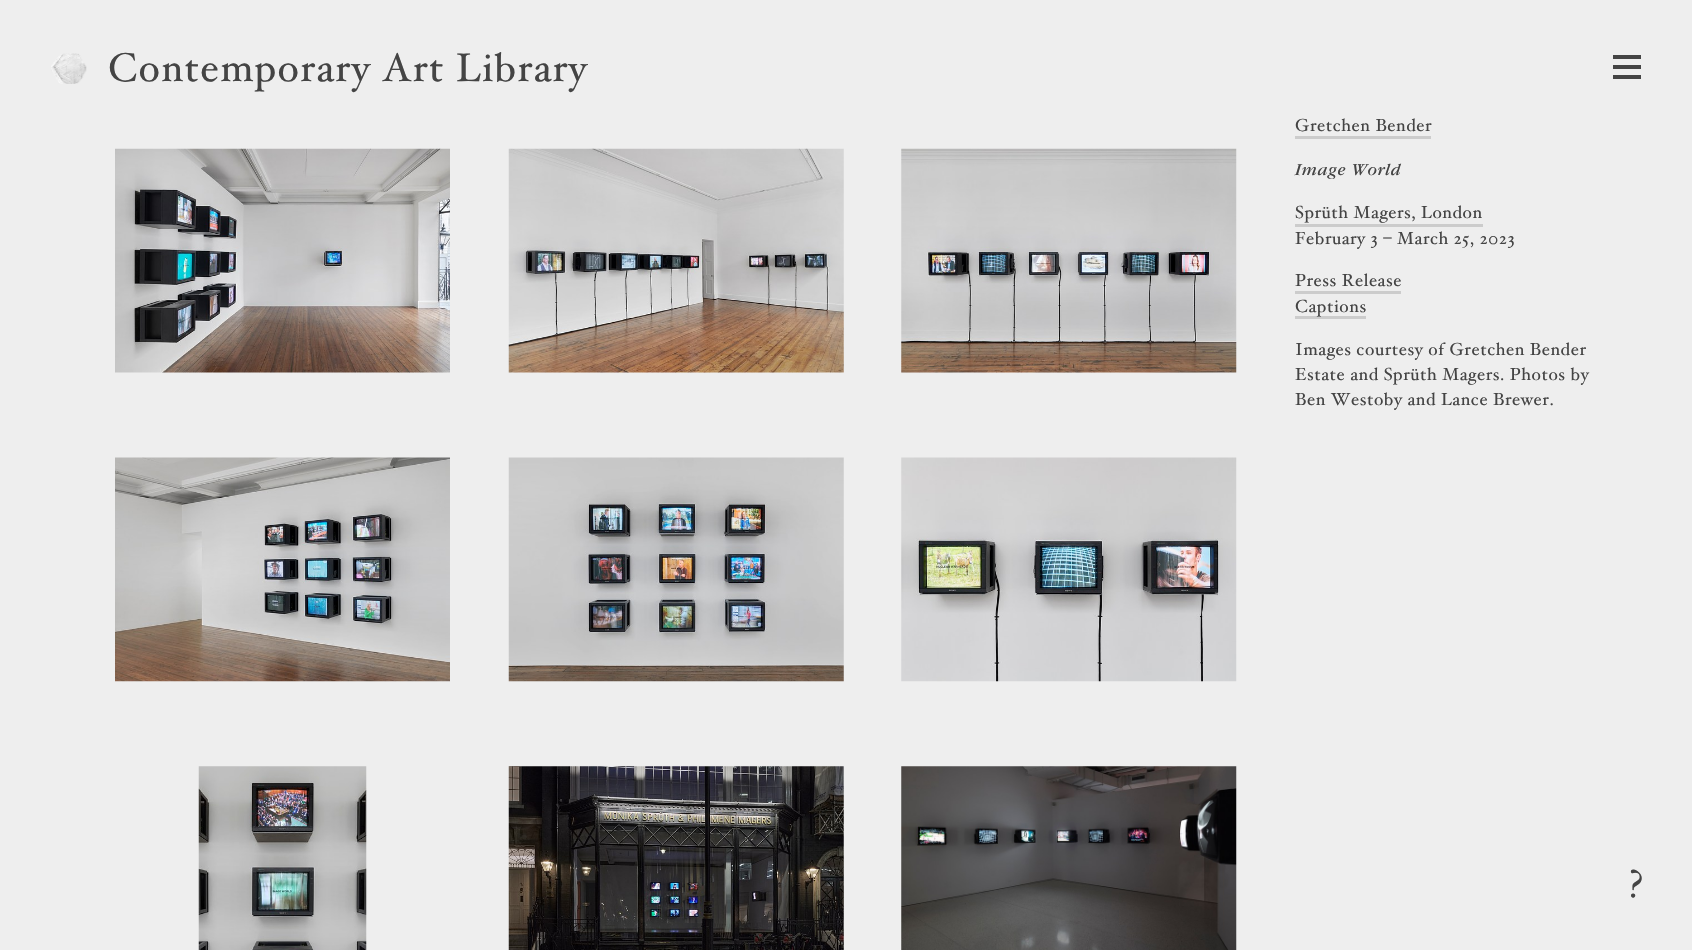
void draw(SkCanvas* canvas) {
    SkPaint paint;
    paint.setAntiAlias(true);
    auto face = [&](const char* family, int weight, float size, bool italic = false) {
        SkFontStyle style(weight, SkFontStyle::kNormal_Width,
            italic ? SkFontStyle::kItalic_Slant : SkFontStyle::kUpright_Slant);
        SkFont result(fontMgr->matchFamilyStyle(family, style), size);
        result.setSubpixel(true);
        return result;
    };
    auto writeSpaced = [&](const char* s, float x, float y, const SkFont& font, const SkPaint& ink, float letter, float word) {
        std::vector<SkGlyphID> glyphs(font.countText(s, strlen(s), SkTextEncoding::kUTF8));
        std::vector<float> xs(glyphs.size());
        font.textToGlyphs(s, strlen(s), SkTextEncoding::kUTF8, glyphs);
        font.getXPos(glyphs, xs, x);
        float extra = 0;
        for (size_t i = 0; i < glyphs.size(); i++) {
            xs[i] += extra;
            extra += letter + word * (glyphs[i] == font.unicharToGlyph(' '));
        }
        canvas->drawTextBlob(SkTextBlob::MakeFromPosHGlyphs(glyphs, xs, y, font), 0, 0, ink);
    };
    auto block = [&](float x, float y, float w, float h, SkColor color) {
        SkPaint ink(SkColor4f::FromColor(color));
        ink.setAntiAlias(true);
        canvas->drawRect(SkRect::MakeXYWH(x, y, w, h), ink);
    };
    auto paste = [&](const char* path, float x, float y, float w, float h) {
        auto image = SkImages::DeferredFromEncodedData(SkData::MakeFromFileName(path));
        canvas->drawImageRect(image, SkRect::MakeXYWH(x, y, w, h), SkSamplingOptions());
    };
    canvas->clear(SkColorSetRGB(238, 238, 238));
    paste("pic1.png", 51, 53, 36, 31);
    auto kFont1 = face("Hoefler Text", 400, 40);
    paint.setColor(SkColorSetRGB(68, 68, 68));
    writeSpaced("Contemporary Art Library", 108, 81, kFont1, paint, 1.2f, 0);
    block(1613, 55, 28, 4, SkColorSetRGB(68, 68, 68));
    block(1613, 65, 28, 4, SkColorSetRGB(68, 68, 68));
    block(1613, 75, 28, 4, SkColorSetRGB(68, 68, 68));
    paste("pic2.png", 115, 148, 335, 225);
    paste("pic3.png", 508, 148, 336, 225);
    paste("pic4.png", 901, 148, 336, 225);
    paste("pic5.png", 115, 457, 335, 225);
    paste("pic6.png", 508, 457, 336, 225);
    paste("pic7.png", 901, 457, 336, 225);
    paste("pic8.png", 198, 766, 169, 184);
    paste("pic9.png", 508, 766, 336, 184);
    paste("pic10.png", 901, 766, 336, 184);
    auto kFont2 = face("Hoefler Text", 400, 17.5f);
    writeSpaced("Gretchen Bender", 1295, 131, kFont2, paint, 0.55f, 0);
    block(1295, 136, 136, 3, SkColorSetRGB(204, 204, 204));
    auto kFont3 = face("Garamond", 400, 17.5f, true);
    writeSpaced("Image World", 1295, 175, kFont3, paint, 0.55f, 0);
    writeSpaced("Sprüth Magers, London", 1295, 218, kFont2, paint, 0.55f, 0);
    block(1295, 224, 188, 3, SkColorSetRGB(204, 204, 204));
    writeSpaced("February 3 – March 25, 2023", 1295, 244, kFont2, paint, 0.55f, 0);
    writeSpaced("Press Release", 1295, 286, kFont2, paint, 0.55f, 0);
    block(1295, 291, 106, 3, SkColorSetRGB(204, 204, 204));
    block(1295, 316, 71, 3, SkColorSetRGB(204, 204, 204));
    writeSpaced("Captions", 1295, 312, kFont2, paint, 0.55f, 0);
    writeSpaced("Images courtesy of Gretchen Bender", 1295, 355, kFont2, paint, 0.55f, 0);
    writeSpaced("Estate and Sprüth Magers. Photos by", 1295, 380, kFont2, paint, 0.55f, 0);
    writeSpaced("Ben Westoby and Lance Brewer.", 1295, 405, kFont2, paint, 0.55f, 0);
    writeSpaced("?", 1629, 897, kFont1, paint, 0.55f, 0);
}
